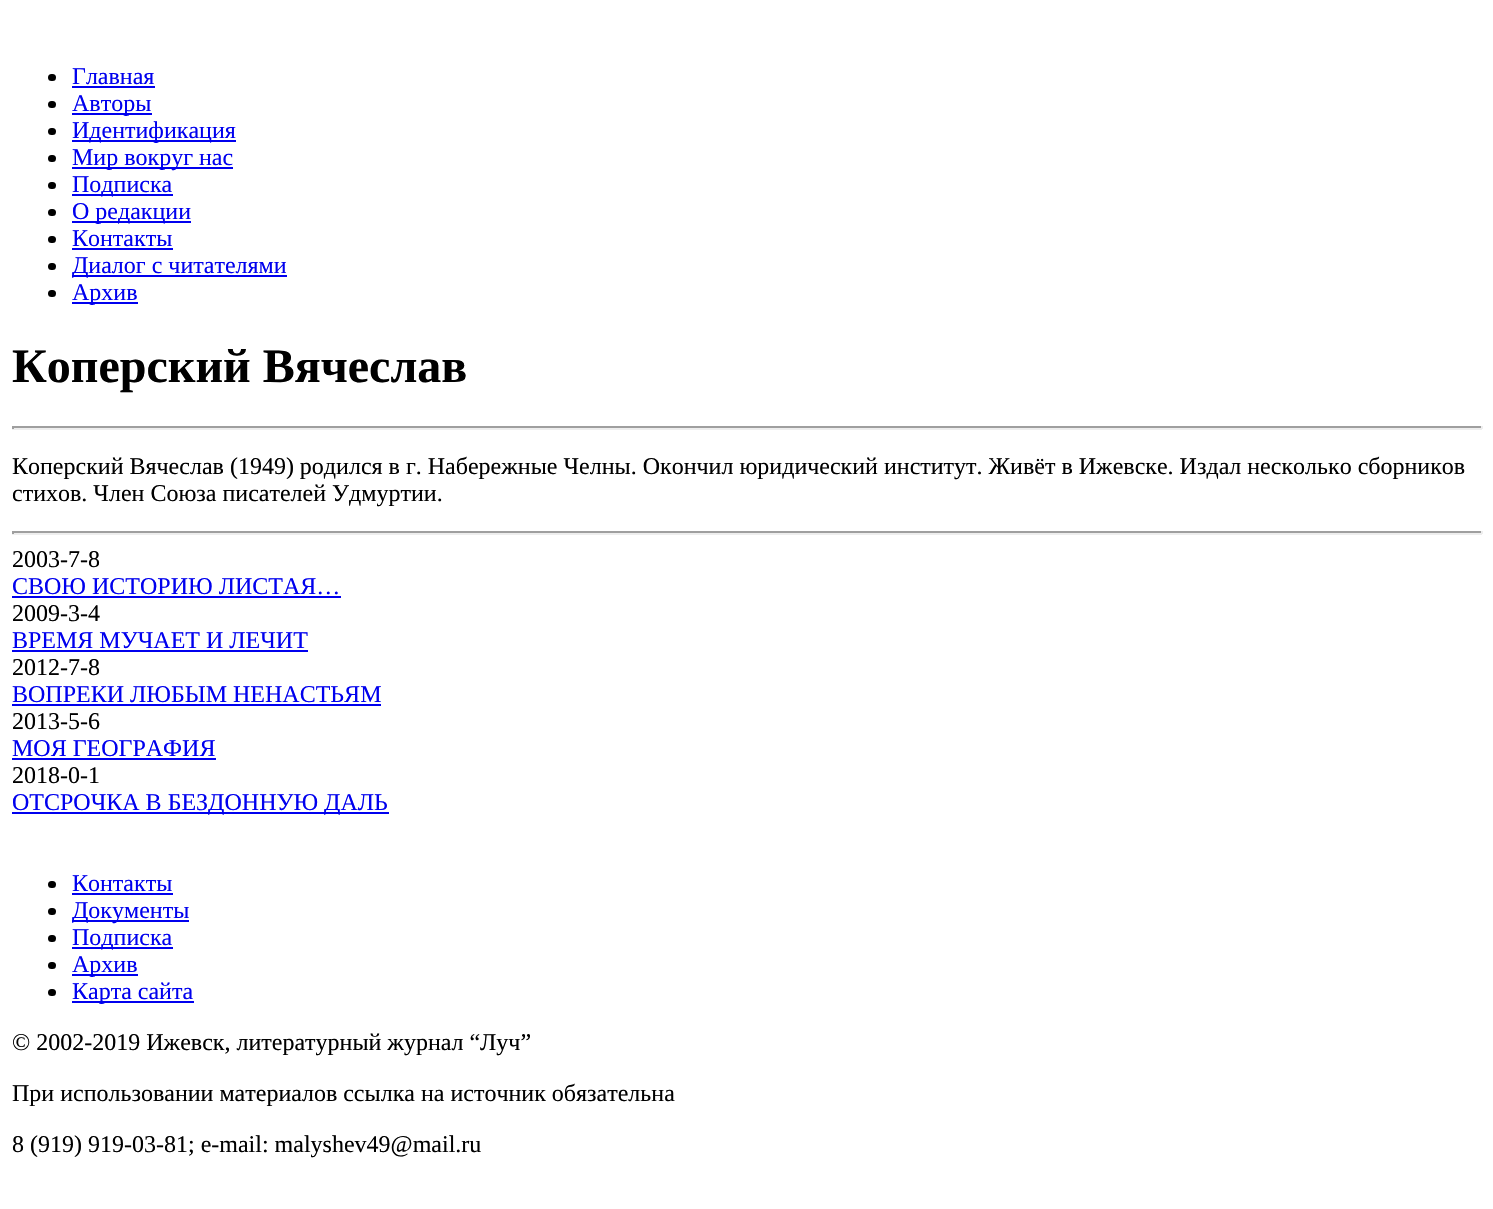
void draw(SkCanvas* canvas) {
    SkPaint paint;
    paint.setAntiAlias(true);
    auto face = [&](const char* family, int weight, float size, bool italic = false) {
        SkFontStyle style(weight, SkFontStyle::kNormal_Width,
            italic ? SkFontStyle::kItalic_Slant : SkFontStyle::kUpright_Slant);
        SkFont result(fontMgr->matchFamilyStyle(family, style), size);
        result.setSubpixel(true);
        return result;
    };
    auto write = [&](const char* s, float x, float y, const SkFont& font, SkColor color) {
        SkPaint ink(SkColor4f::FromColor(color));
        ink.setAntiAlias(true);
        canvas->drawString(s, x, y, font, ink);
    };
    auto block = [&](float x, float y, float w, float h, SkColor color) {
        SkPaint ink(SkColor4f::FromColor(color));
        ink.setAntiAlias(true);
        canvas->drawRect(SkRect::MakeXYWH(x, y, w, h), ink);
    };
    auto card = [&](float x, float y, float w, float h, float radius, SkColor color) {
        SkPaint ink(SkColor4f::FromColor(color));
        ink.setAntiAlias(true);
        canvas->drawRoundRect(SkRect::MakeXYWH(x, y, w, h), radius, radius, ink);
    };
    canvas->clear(SK_ColorWHITE);
    card(48, 74, 8, 7, 3.5f, SK_ColorBLACK);
    auto kFont1 = face("Liberation Serif", 400, 24);
    write("Главная", 72, 84, kFont1, SkColorSetRGB(0, 0, 238));
    block(72, 86, 83, 2, SkColorSetRGB(0, 0, 238));
    card(48, 101, 8, 7, 3.5f, SK_ColorBLACK);
    block(72, 113, 80, 2, SkColorSetRGB(0, 0, 238));
    write("Авторы", 72, 111, kFont1, SkColorSetRGB(0, 0, 238));
    card(48, 128, 8, 7, 3.5f, SK_ColorBLACK);
    block(72, 140, 164, 2, SkColorSetRGB(0, 0, 238));
    write("Идентификация", 72, 138, kFont1, SkColorSetRGB(0, 0, 238));
    card(48, 155, 8, 7, 3.5f, SK_ColorBLACK);
    block(72, 167, 161, 2, SkColorSetRGB(0, 0, 238));
    write("Мир вокруг нас", 72, 165, kFont1, SkColorSetRGB(0, 0, 238));
    card(48, 182, 8, 7, 3.5f, SK_ColorBLACK);
    block(72, 194, 101, 2, SkColorSetRGB(0, 0, 238));
    write("Подписка", 72, 192, kFont1, SkColorSetRGB(0, 0, 238));
    card(48, 209, 8, 7, 3.5f, SK_ColorBLACK);
    block(72, 221, 119, 2, SkColorSetRGB(0, 0, 238));
    write("О редакции", 72, 219, kFont1, SkColorSetRGB(0, 0, 238));
    card(48, 236, 8, 7, 3.5f, SK_ColorBLACK);
    write("Контакты", 72, 246, kFont1, SkColorSetRGB(0, 0, 238));
    block(72, 248, 101, 2, SkColorSetRGB(0, 0, 238));
    card(48, 263, 8, 7, 3.5f, SK_ColorBLACK);
    block(72, 275, 215, 2, SkColorSetRGB(0, 0, 238));
    write("Диалог с читателями", 72, 273, kFont1, SkColorSetRGB(0, 0, 238));
    card(48, 290, 8, 7, 3.5f, SK_ColorBLACK);
    block(72, 302, 66, 2, SkColorSetRGB(0, 0, 238));
    write("Архив", 72, 300, kFont1, SkColorSetRGB(0, 0, 238));
    auto kFont2 = face("Liberation Serif", 700, 48);
    write("Коперский Вячеслав", 12, 382, kFont2, SK_ColorBLACK);
    block(12, 426, 1470, 2, SkColorSetRGB(159, 159, 159));
    block(1481, 426, 2, 3, SkColorSetRGB(238, 238, 238));
    block(12, 428, 1470, 2, SkColorSetRGB(238, 238, 238));
    block(12, 426, 2, 3, SkColorSetRGB(159, 159, 159));
    write("Коперский Вячеслав (1949) родился в г. Набережные Челны. Окончил юридический институт. Живёт в Ижевске. Издал несколько сборников", 12, 474, kFont1, SK_ColorBLACK);
    write("стихов. Член Союза писателей Удмуртии.", 12, 501, kFont1, SK_ColorBLACK);
    block(12, 531, 1470, 2, SkColorSetRGB(159, 159, 159));
    block(1481, 531, 2, 3, SkColorSetRGB(238, 238, 238));
    block(12, 533, 1470, 2, SkColorSetRGB(238, 238, 238));
    block(12, 531, 2, 3, SkColorSetRGB(159, 159, 159));
    write("2003-7-8", 12, 567, kFont1, SK_ColorBLACK);
    write("СВОЮ ИСТОРИЮ ЛИСТАЯ…", 12, 594, kFont1, SkColorSetRGB(0, 0, 238));
    block(12, 596, 329, 2, SkColorSetRGB(0, 0, 238));
    write("2009-3-4", 12, 621, kFont1, SK_ColorBLACK);
    write("ВРЕМЯ МУЧАЕТ И ЛЕЧИТ", 12, 648, kFont1, SkColorSetRGB(0, 0, 238));
    block(12, 650, 296, 2, SkColorSetRGB(0, 0, 238));
    write("2012-7-8", 12, 675, kFont1, SK_ColorBLACK);
    write("ВОПРЕКИ ЛЮБЫМ НЕНАСТЬЯМ", 12, 702, kFont1, SkColorSetRGB(0, 0, 238));
    block(12, 704, 369, 2, SkColorSetRGB(0, 0, 238));
    write("2013-5-6", 12, 729, kFont1, SK_ColorBLACK);
    write("МОЯ ГЕОГРАФИЯ", 12, 756, kFont1, SkColorSetRGB(0, 0, 238));
    block(12, 758, 204, 2, SkColorSetRGB(0, 0, 238));
    write("2018-0-1", 12, 783, kFont1, SK_ColorBLACK);
    block(12, 812, 377, 2, SkColorSetRGB(0, 0, 238));
    write("ОТСРОЧКА В БЕЗДОННУЮ ДАЛЬ", 12, 810, kFont1, SkColorSetRGB(0, 0, 238));
    card(48, 881, 8, 7, 3.5f, SK_ColorBLACK);
    write("Контакты", 72, 891, kFont1, SkColorSetRGB(0, 0, 238));
    block(72, 893, 101, 2, SkColorSetRGB(0, 0, 238));
    card(48, 908, 8, 7, 3.5f, SK_ColorBLACK);
    block(72, 920, 117, 2, SkColorSetRGB(0, 0, 238));
    write("Документы", 72, 918, kFont1, SkColorSetRGB(0, 0, 238));
    card(48, 935, 8, 7, 3.5f, SK_ColorBLACK);
    block(72, 947, 101, 2, SkColorSetRGB(0, 0, 238));
    write("Подписка", 72, 945, kFont1, SkColorSetRGB(0, 0, 238));
    card(48, 962, 8, 7, 3.5f, SK_ColorBLACK);
    block(72, 974, 66, 2, SkColorSetRGB(0, 0, 238));
    write("Архив", 72, 972, kFont1, SkColorSetRGB(0, 0, 238));
    card(48, 989, 8, 7, 3.5f, SK_ColorBLACK);
    block(72, 1001, 122, 2, SkColorSetRGB(0, 0, 238));
    write("Карта сайта", 72, 999, kFont1, SkColorSetRGB(0, 0, 238));
    write("© 2002-2019 Ижевск, литературный журнал “Луч”", 12, 1050, kFont1, SK_ColorBLACK);
    write("При использовании материалов ссылка на источник обязательна", 12, 1101, kFont1, SK_ColorBLACK);
    write("8 (919) 919-03-81; e-mail: malyshev49@mail.ru", 12, 1152, kFont1, SK_ColorBLACK);
}
